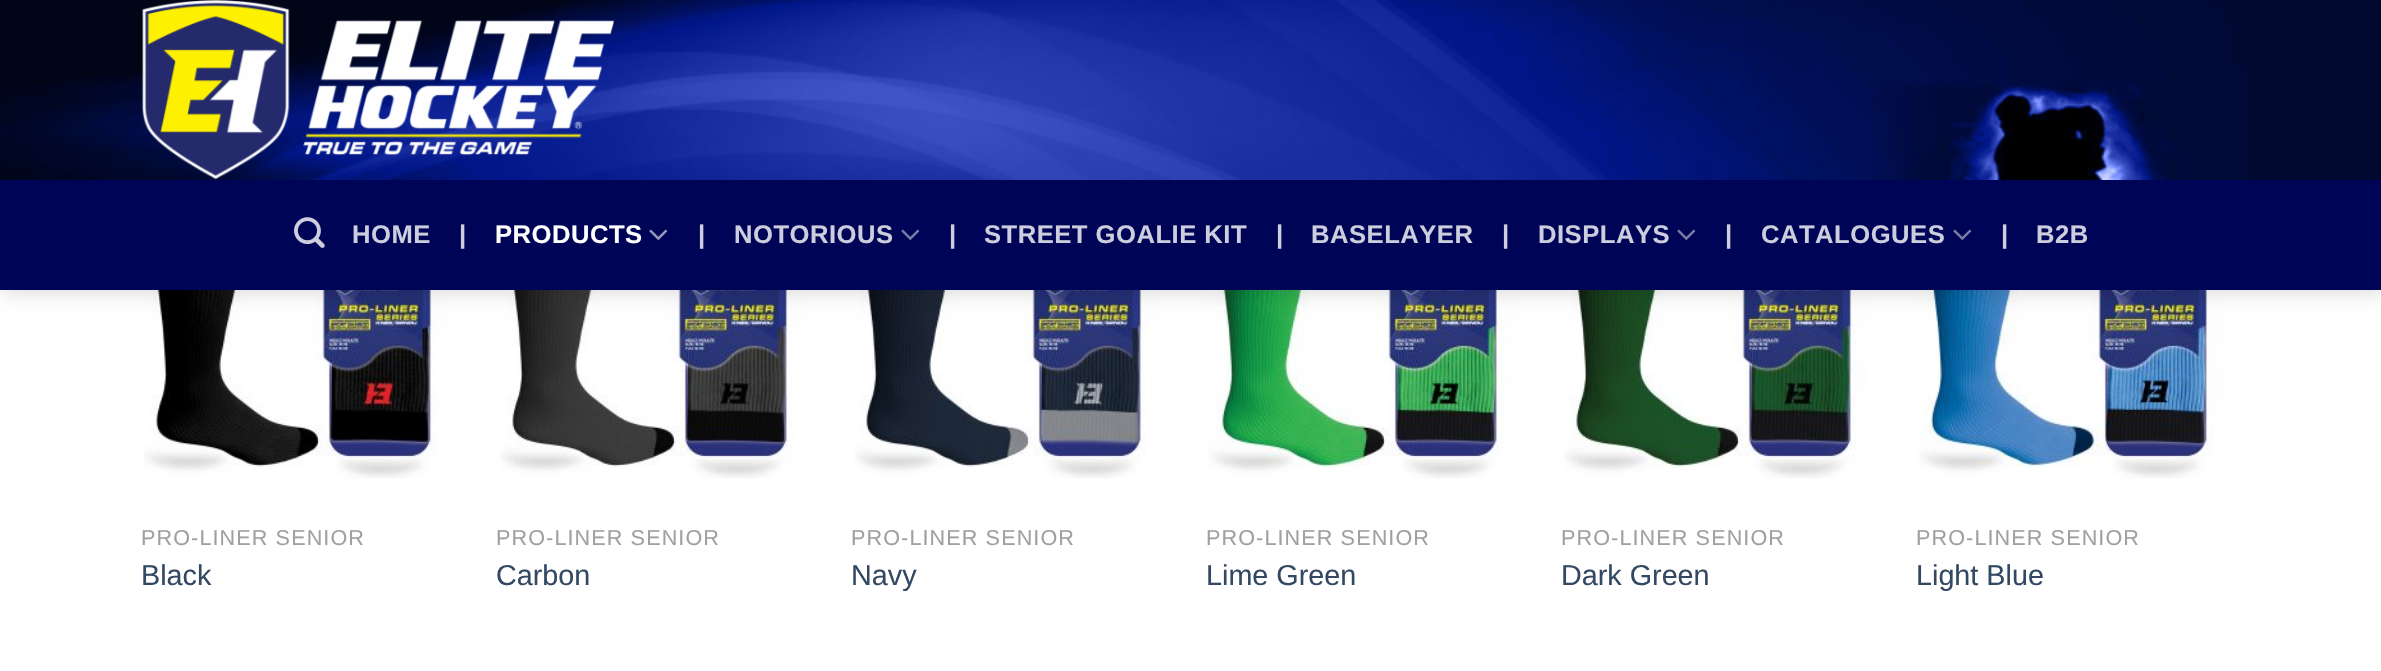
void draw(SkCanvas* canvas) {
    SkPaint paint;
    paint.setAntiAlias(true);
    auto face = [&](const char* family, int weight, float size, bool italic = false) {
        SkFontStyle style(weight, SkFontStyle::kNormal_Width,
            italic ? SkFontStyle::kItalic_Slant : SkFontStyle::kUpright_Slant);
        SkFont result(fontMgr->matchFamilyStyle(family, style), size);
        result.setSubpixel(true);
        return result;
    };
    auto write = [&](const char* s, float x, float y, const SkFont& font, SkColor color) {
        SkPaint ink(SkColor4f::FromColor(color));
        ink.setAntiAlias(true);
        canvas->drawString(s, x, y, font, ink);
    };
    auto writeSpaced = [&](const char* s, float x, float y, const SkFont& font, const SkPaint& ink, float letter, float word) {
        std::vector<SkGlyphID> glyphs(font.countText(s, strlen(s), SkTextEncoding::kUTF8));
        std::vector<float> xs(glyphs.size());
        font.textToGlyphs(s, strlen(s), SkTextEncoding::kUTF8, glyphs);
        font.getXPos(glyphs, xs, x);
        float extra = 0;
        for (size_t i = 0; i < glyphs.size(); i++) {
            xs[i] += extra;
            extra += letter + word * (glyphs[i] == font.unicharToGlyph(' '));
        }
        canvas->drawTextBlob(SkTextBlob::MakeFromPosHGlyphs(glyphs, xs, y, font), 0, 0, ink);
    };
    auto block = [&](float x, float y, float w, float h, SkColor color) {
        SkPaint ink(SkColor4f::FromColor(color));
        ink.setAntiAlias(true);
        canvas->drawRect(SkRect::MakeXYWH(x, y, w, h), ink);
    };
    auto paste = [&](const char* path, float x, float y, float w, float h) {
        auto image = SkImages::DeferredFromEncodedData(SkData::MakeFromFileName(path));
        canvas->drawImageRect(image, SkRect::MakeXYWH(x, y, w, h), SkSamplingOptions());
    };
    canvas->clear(SK_ColorWHITE);
    paste("pic6.png", 144, 290, 304, 189);
    paste("pic7.png", 500, 290, 304, 189);
    paste("pic8.png", 854, 290, 304, 189);
    paste("pic9.png", 1206, 290, 308, 189);
    paste("pic10.png", 1564, 290, 304, 189);
    paste("pic11.png", 1916, 290, 308, 189);
    paint.setColor(SkColorSetARGB(38, 0, 0, 0));
    paint.setMaskFilter(SkMaskFilter::MakeBlur(kNormal_SkBlurStyle, 10));
    canvas->drawRect(SkRect::MakeXYWH(2, 2, 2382, 290), paint);
    paint.setMaskFilter(nullptr);
    paste("pic1.png", 0, 0, 2381, 180);
    paste("pic2.png", 142, 0, 472, 180);
    block(0, 180, 2381, 110, SkColorSetRGB(0, 4, 86));
    paste("pic3.png", 294, 217, 31, 31);
    auto kFont1 = face("Liberation Sans", 700, 25.6f);
    paint.setColor(SkColorSetRGB(204, 205, 221));
    writeSpaced("HOME", 352, 243, kFont1, paint, 0.5f, 0);
    writeSpaced("|", 459, 243, kFont1, paint, 0.5f, 0);
    paint.setColor(SK_ColorWHITE);
    writeSpaced("PRODUCTS", 495, 243, kFont1, paint, 0.5f, 0);
    paste("pic4.png", 649, 229, 19, 11);
    paint.setColor(SkColorSetRGB(204, 205, 221));
    writeSpaced("|", 698, 243, kFont1, paint, 0.5f, 0);
    writeSpaced("NOTORIOUS", 734, 243, kFont1, paint, 0.5f, 0);
    paste("pic5.png", 901, 229, 19, 11);
    writeSpaced("|", 949, 243, kFont1, paint, 0.5f, 0);
    writeSpaced("STREET GOALIE KIT", 984, 243, kFont1, paint, 0.5f, 0);
    writeSpaced("|", 1276, 243, kFont1, paint, 0.5f, 0);
    writeSpaced("BASELAYER", 1311, 243, kFont1, paint, 0.5f, 0);
    writeSpaced("|", 1502, 243, kFont1, paint, 0.5f, 0);
    writeSpaced("DISPLAYS", 1538, 243, kFont1, paint, 0.5f, 0);
    paste("pic5.png", 1677, 229, 19, 11);
    writeSpaced("|", 1725, 243, kFont1, paint, 0.5f, 0);
    writeSpaced("CATALOGUES", 1761, 243, kFont1, paint, 0.5f, 0);
    paste("pic5.png", 1953, 229, 19, 11);
    writeSpaced("|", 2001, 243, kFont1, paint, 0.5f, 0);
    writeSpaced("B2B", 2036, 243, kFont1, paint, 0.5f, 0);
    auto kFont2 = face("Liberation Sans", 400, 21.6f);
    paint.setColor(SkColorSetRGB(160, 160, 160));
    writeSpaced("PRO-LINER SENIOR", 141, 545, kFont2, paint, 1.1f, 0);
    auto kFont3 = face("Liberation Sans", 400, 28.75f);
    write("Black", 141, 585, kFont3, SkColorSetRGB(51, 72, 98));
    writeSpaced("PRO-LINER SENIOR", 496, 545, kFont2, paint, 1.1f, 0);
    write("Carbon", 496, 585, kFont3, SkColorSetRGB(51, 72, 98));
    writeSpaced("PRO-LINER SENIOR", 851, 545, kFont2, paint, 1.1f, 0);
    write("Navy", 851, 585, kFont3, SkColorSetRGB(51, 72, 98));
    writeSpaced("PRO-LINER SENIOR", 1206, 545, kFont2, paint, 1.1f, 0);
    write("Lime Green", 1206, 585, kFont3, SkColorSetRGB(51, 72, 98));
    writeSpaced("PRO-LINER SENIOR", 1561, 545, kFont2, paint, 1.1f, 0);
    write("Dark Green", 1561, 585, kFont3, SkColorSetRGB(51, 72, 98));
    writeSpaced("PRO-LINER SENIOR", 1916, 545, kFont2, paint, 1.1f, 0);
    write("Light Blue", 1916, 585, kFont3, SkColorSetRGB(51, 72, 98));
}
